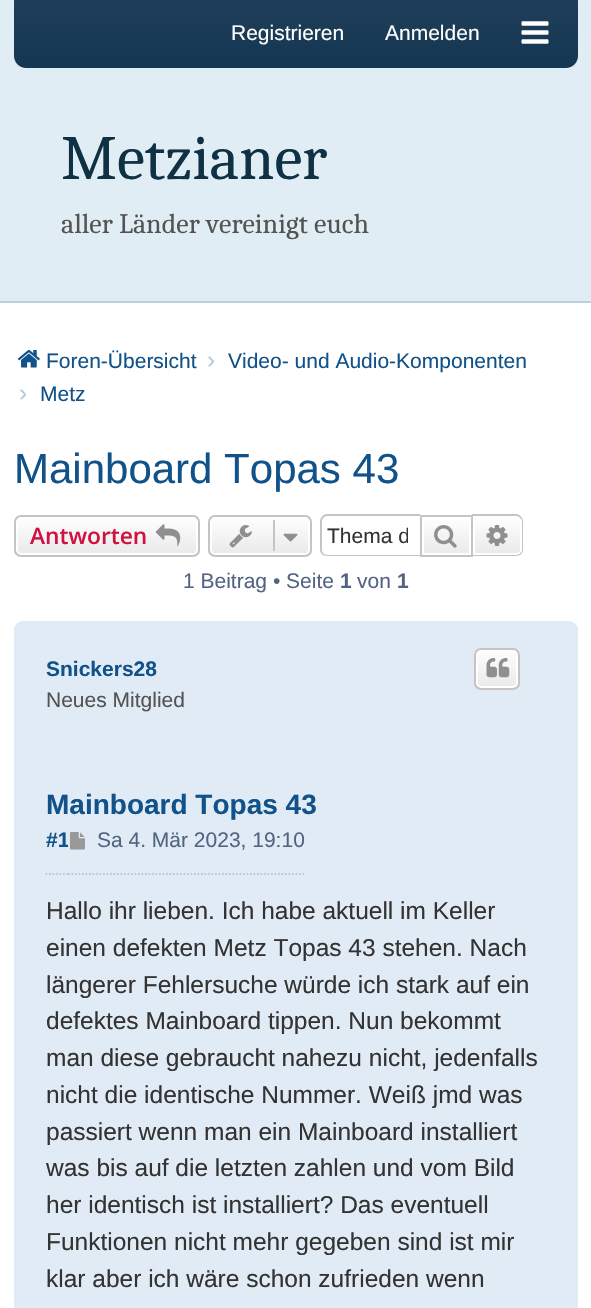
void draw(SkCanvas* canvas) {
    SkPaint paint;
    paint.setAntiAlias(true);
    auto face = [&](const char* family, int weight, float size, bool italic = false) {
        SkFontStyle style(weight, SkFontStyle::kNormal_Width,
            italic ? SkFontStyle::kItalic_Slant : SkFontStyle::kUpright_Slant);
        SkFont result(fontMgr->matchFamilyStyle(family, style), size);
        result.setSubpixel(true);
        return result;
    };
    auto write = [&](const char* s, float x, float y, const SkFont& font, SkColor color) {
        SkPaint ink(SkColor4f::FromColor(color));
        ink.setAntiAlias(true);
        canvas->drawString(s, x, y, font, ink);
    };
    auto block = [&](float x, float y, float w, float h, SkColor color) {
        SkPaint ink(SkColor4f::FromColor(color));
        ink.setAntiAlias(true);
        canvas->drawRect(SkRect::MakeXYWH(x, y, w, h), ink);
    };
    auto card = [&](float x, float y, float w, float h, float radius, SkColor color) {
        SkPaint ink(SkColor4f::FromColor(color));
        ink.setAntiAlias(true);
        canvas->drawRoundRect(SkRect::MakeXYWH(x, y, w, h), radius, radius, ink);
    };
    auto paste = [&](const char* path, float x, float y, float w, float h) {
        auto image = SkImages::DeferredFromEncodedData(SkData::MakeFromFileName(path));
        canvas->drawImageRect(image, SkRect::MakeXYWH(x, y, w, h), SkSamplingOptions());
    };
    canvas->clear(SK_ColorWHITE);
    block(0, 0, 591, 301, SkColorSetRGB(224, 237, 244));
    {
        const SkColor colors[] = {SkColorSetRGB(31, 62, 89), SkColorSetRGB(21, 55, 83)};
        const float stops[] = {0, 1};
        const SkPoint ends[] = {{296, 0}, {296, 68}};
        paint.setShader(SkGradientShader::MakeLinear(ends, colors, stops, 2, SkTileMode::kClamp));
        paint.setAlpha(255);
    }
    canvas->drawPath(SkPathBuilder().moveTo(14, 0).lineTo(578, 0).lineTo(578, 56).cubicTo(578, 62.5f, 572.5f, 68, 566, 68).lineTo(26, 68).cubicTo(19.5f, 68, 14, 62.5f, 14, 56).close().detach(), paint);
    auto kFont1 = face("Liberation Sans", 400, 21);
    write("Registrieren", 231, 40, kFont1, SK_ColorWHITE);
    write("Anmelden", 385, 40, kFont1, SK_ColorWHITE);
    paste("pic1.png", 521, 21, 28, 23);
    block(0, 301, 591, 2, SkColorSetRGB(186, 209, 222));
    auto kFont2 = face("Caladea", 400, 63);
    write("Metzianer", 61, 179, kFont2, SkColorSetRGB(16, 49, 67));
    auto kFont3 = face("Caladea", 400, 28);
    write("aller Länder vereinigt euch", 61, 233, kFont3, SkColorSetRGB(83, 83, 83));
    paste("pic2.png", 17, 350, 23, 18);
    write("Foren-Übersicht", 46, 368, kFont1, SkColorSetRGB(16, 82, 137));
    auto kFont4 = face("Liberation Sans", 400, 24.5f);
    write("›", 207, 368, kFont4, SkColorSetRGB(183, 201, 215));
    write("Video- und Audio-Komponenten", 228, 368, kFont1, SkColorSetRGB(16, 82, 137));
    write("›", 19, 401, kFont4, SkColorSetRGB(183, 201, 215));
    write("Metz", 40, 401, kFont1, SkColorSetRGB(16, 82, 137));
    auto kFont5 = face("Liberation Sans", 400, 42);
    write("Mainboard Topas 43", 14, 483, kFont5, SkColorSetRGB(16, 82, 137));
    canvas->save();
    canvas->clipPath(SkPathBuilder().moveTo(21, 515).lineTo(193, 515).cubicTo(197, 515, 200, 518, 200, 522).lineTo(200, 550).cubicTo(200, 554, 197, 557, 193, 557).lineTo(21, 557).cubicTo(17, 557, 14, 554, 14, 550).lineTo(14, 522).cubicTo(14, 518, 17, 515, 21, 515).close().detach(), true);
    {
        const SkColor colors[] = {SK_ColorWHITE, SkColorSetRGB(233, 233, 233)};
        const float stops[] = {0, 1};
        const SkPoint ends[] = {{107, 516}, {107, 555}};
        paint.setShader(SkGradientShader::MakeLinear(ends, colors, stops, 2, SkTileMode::kClamp));
        paint.setAlpha(255);
    }
    canvas->drawRect(SkRect::MakeXYWH(14, 516, 186, 39), paint);
    canvas->restore();
    paint.setStyle(SkPaint::kStroke_Style);
    paint.setStrokeWidth(2);
    paint.setShader(nullptr);
    paint.setColor(SK_ColorWHITE);
    canvas->drawRoundRect(SkRect::MakeXYWH(17, 517, 180, 37), 4, 4, paint);
    paint.setColor(SkColorSetRGB(199, 195, 191));
    canvas->drawRoundRect(SkRect::MakeXYWH(15, 516, 184, 40), 6, 6, paint);
    auto kFont6 = face("Open Sans", 600, 22.75f);
    write("Antworten", 30, 544, kFont6, SkColorSetRGB(211, 17, 65));
    paste("pic3.png", 155, 524, 26, 22);
    canvas->save();
    canvas->clipPath(SkPathBuilder().moveTo(215, 515).lineTo(305, 515).cubicTo(309, 515, 312, 518, 312, 522).lineTo(312, 550).cubicTo(312, 554, 309, 557, 305, 557).lineTo(215, 557).cubicTo(211, 557, 208, 554, 208, 550).lineTo(208, 522).cubicTo(208, 518, 211, 515, 215, 515).close().detach(), true);
    paint.setStyle(SkPaint::kFill_Style);
    {
        const SkColor colors[] = {SK_ColorWHITE, SkColorSetRGB(233, 233, 233)};
        const float stops[] = {0, 1};
        const SkPoint ends[] = {{260, 516}, {260, 555}};
        paint.setShader(SkGradientShader::MakeLinear(ends, colors, stops, 2, SkTileMode::kClamp));
        paint.setAlpha(255);
    }
    canvas->drawRect(SkRect::MakeXYWH(208, 516, 104, 39), paint);
    canvas->restore();
    paint.setStyle(SkPaint::kStroke_Style);
    paint.setShader(nullptr);
    paint.setColor(SK_ColorWHITE);
    canvas->drawRoundRect(SkRect::MakeXYWH(211, 517, 98, 37), 4, 4, paint);
    paint.setColor(SkColorSetRGB(199, 195, 191));
    canvas->drawRoundRect(SkRect::MakeXYWH(209, 516, 102, 40), 6, 6, paint);
    paste("pic4.png", 229, 525, 23, 23);
    block(273, 520, 2, 31, SkColorSetRGB(199, 195, 191));
    paste("pic5.png", 283, 533, 15, 9);
    paint.setStyle(SkPaint::kFill_Style);
    canvas->drawPath(SkPathBuilder(SkPathFillType::kEvenOdd).moveTo(327, 514).lineTo(420, 514).lineTo(420, 556).lineTo(327, 556).cubicTo(323, 556, 320, 553, 320, 550).lineTo(320, 522).cubicTo(320, 518, 323, 514, 327, 514).close().moveTo(327, 516).lineTo(420, 516).lineTo(420, 555).lineTo(327, 555).cubicTo(324, 555, 322, 552, 322, 550).lineTo(322, 522).cubicTo(322, 519, 324, 516, 327, 516).close().detach(), paint);
    canvas->save();
    canvas->clipRect(SkRect::MakeXYWH(327, 523, 81, 25));
    write("Thema d", 327, 543, kFont1, SkColorSetRGB(51, 51, 51));
    canvas->restore();
    {
        const SkColor colors[] = {SK_ColorWHITE, SkColorSetRGB(233, 233, 233)};
        const float stops[] = {0, 1};
        const SkPoint ends[] = {{446, 516}, {446, 555}};
        paint.setShader(SkGradientShader::MakeLinear(ends, colors, stops, 2, SkTileMode::kClamp));
        paint.setAlpha(255);
    }
    canvas->drawRect(SkRect::MakeXYWH(424, 520, 45, 33), paint);
    paint.setStyle(SkPaint::kStroke_Style);
    paint.setShader(nullptr);
    paint.setColor(SkColorSetRGB(199, 195, 191));
    canvas->drawRect(SkRect::MakeXYWH(421, 516, 51, 40), paint);
    paste("pic6.png", 434, 525, 23, 23);
    paint.setStyle(SkPaint::kFill_Style);
    {
        const SkColor colors[] = {SK_ColorWHITE, SkColorSetRGB(233, 233, 233)};
        const float stops[] = {0, 1};
        const SkPoint ends[] = {{497, 516}, {497, 555}};
        paint.setShader(SkGradientShader::MakeLinear(ends, colors, stops, 2, SkTileMode::kClamp));
        paint.setAlpha(255);
    }
    canvas->drawPath(SkPathBuilder().moveTo(474, 517).lineTo(517, 517).cubicTo(519, 517, 521, 519, 521, 521).lineTo(521, 550).cubicTo(521, 552, 519, 554, 517, 554).lineTo(474, 554).close().detach(), paint);
    paint.setStyle(SkPaint::kStroke_Style);
    paint.setShader(nullptr);
    paint.setColor(SK_ColorWHITE);
    canvas->drawPath(SkPathBuilder().moveTo(474, 517).lineTo(517, 517).cubicTo(519, 517, 521, 519, 521, 521).lineTo(521, 550).cubicTo(521, 552, 519, 554, 517, 554).lineTo(474, 554).close().detach(), paint);
    paint.setStyle(SkPaint::kFill_Style);
    paint.setColor(SkColorSetRGB(199, 195, 191));
    canvas->drawPath(SkPathBuilder(SkPathFillType::kEvenOdd).moveTo(472, 514).lineTo(516, 514).cubicTo(520, 514, 523, 518, 523, 522).lineTo(523, 550).cubicTo(523, 553, 520, 556, 516, 556).lineTo(472, 556).close().moveTo(472, 516).lineTo(516, 516).cubicTo(519, 516, 522, 519, 522, 522).lineTo(522, 550).cubicTo(522, 552, 519, 555, 516, 555).lineTo(472, 555).close().detach(), paint);
    paste("pic7.png", 486, 525, 22, 21);
    write("1 Beitrag • Seite", 183, 588, kFont1, SkColorSetRGB(83, 100, 130));
    auto kFont7 = face("Liberation Sans", 700, 21);
    write("1", 340, 588, kFont7, SkColorSetRGB(83, 100, 130));
    write("von", 357, 588, kFont1, SkColorSetRGB(83, 100, 130));
    write("1", 397, 588, kFont7, SkColorSetRGB(83, 100, 130));
    card(14, 621, 564, 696, 9, SkColorSetRGB(225, 235, 245));
    write("Snickers28", 46, 676, kFont7, SkColorSetRGB(16, 82, 137));
    write("Neues Mitglied", 46, 707, kFont1, SkColorSetRGB(83, 83, 83));
    canvas->save();
    canvas->clipPath(SkPathBuilder().moveTo(481, 648).lineTo(513, 648).cubicTo(517, 648, 520, 651, 520, 655).lineTo(520, 683).cubicTo(520, 687, 517, 690, 513, 690).lineTo(481, 690).cubicTo(477, 690, 474, 687, 474, 683).lineTo(474, 655).cubicTo(474, 651, 477, 648, 481, 648).close().detach(), true);
    {
        const SkColor colors[] = {SK_ColorWHITE, SkColorSetRGB(233, 233, 233)};
        const float stops[] = {0, 1};
        const SkPoint ends[] = {{497, 649}, {497, 688}};
        paint.setShader(SkGradientShader::MakeLinear(ends, colors, stops, 2, SkTileMode::kClamp));
        paint.setAlpha(255);
    }
    canvas->drawRect(SkRect::MakeXYWH(474, 649, 46, 39), paint);
    canvas->restore();
    paint.setStyle(SkPaint::kStroke_Style);
    paint.setShader(nullptr);
    paint.setColor(SK_ColorWHITE);
    canvas->drawRoundRect(SkRect::MakeXYWH(477, 650, 40, 37), 4, 4, paint);
    paint.setColor(SkColorSetRGB(199, 195, 191));
    canvas->drawRoundRect(SkRect::MakeXYWH(475, 649, 44, 40), 6, 6, paint);
    paste("pic8.png", 486, 658, 24, 20);
    auto kFont8 = face("Liberation Sans", 700, 28);
    write("Mainboard Topas 43", 46, 814, kFont8, SkColorSetRGB(16, 82, 137));
    paint.setStrokeWidth(1.8f);
    paint.setColor(SkColorSetRGB(183, 201, 215));
    paint.setPathEffect(SkDashPathEffect::Make({{1.75f, 1.75f}}, 0));
    canvas->drawPath(SkPathBuilder().moveTo(45.5f, 874).lineTo(68, 874).detach(), paint);
    paint.setPathEffect(nullptr);
    canvas->save();
    canvas->clipRect(SkRect::MakeXYWH(46, 824, 22, 49));
    write("#1", 46, 847, kFont7, SkColorSetRGB(16, 82, 137));
    canvas->restore();
    paint.setPathEffect(SkDashPathEffect::Make({{1.75f, 1.75f}}, 0));
    canvas->drawPath(SkPathBuilder().moveTo(68, 874).lineTo(304.5f, 874).detach(), paint);
    paint.setPathEffect(nullptr);
    paste("pic9.png", 70, 832, 15, 18);
    write("Sa 4. Mär 2023, 19:10", 97, 847, kFont1, SkColorSetRGB(83, 100, 130));
    write("Hallo ihr lieben. Ich habe aktuell im Keller", 46, 919, kFont4, SkColorSetRGB(51, 51, 51));
    write("einen defekten Metz Topas 43 stehen. Nach", 46, 956, kFont4, SkColorSetRGB(51, 51, 51));
    write("längerer Fehlersuche würde ich stark auf ein", 46, 993, kFont4, SkColorSetRGB(51, 51, 51));
    write("defektes Mainboard tippen. Nun bekommt", 46, 1029, kFont4, SkColorSetRGB(51, 51, 51));
    write("man diese gebraucht nahezu nicht, jedenfalls", 46, 1066, kFont4, SkColorSetRGB(51, 51, 51));
    write("nicht die identische Nummer. Weiß jmd was", 46, 1103, kFont4, SkColorSetRGB(51, 51, 51));
    write("passiert wenn man ein Mainboard installiert", 46, 1140, kFont4, SkColorSetRGB(51, 51, 51));
    write("was bis auf die letzten zahlen und vom Bild", 46, 1176, kFont4, SkColorSetRGB(51, 51, 51));
    write("her identisch ist installiert? Das eventuell", 46, 1213, kFont4, SkColorSetRGB(51, 51, 51));
    write("Funktionen nicht mehr gegeben sind ist mir", 46, 1250, kFont4, SkColorSetRGB(51, 51, 51));
    write("klar aber ich wäre schon zufrieden wenn", 46, 1287, kFont4, SkColorSetRGB(51, 51, 51));
}
